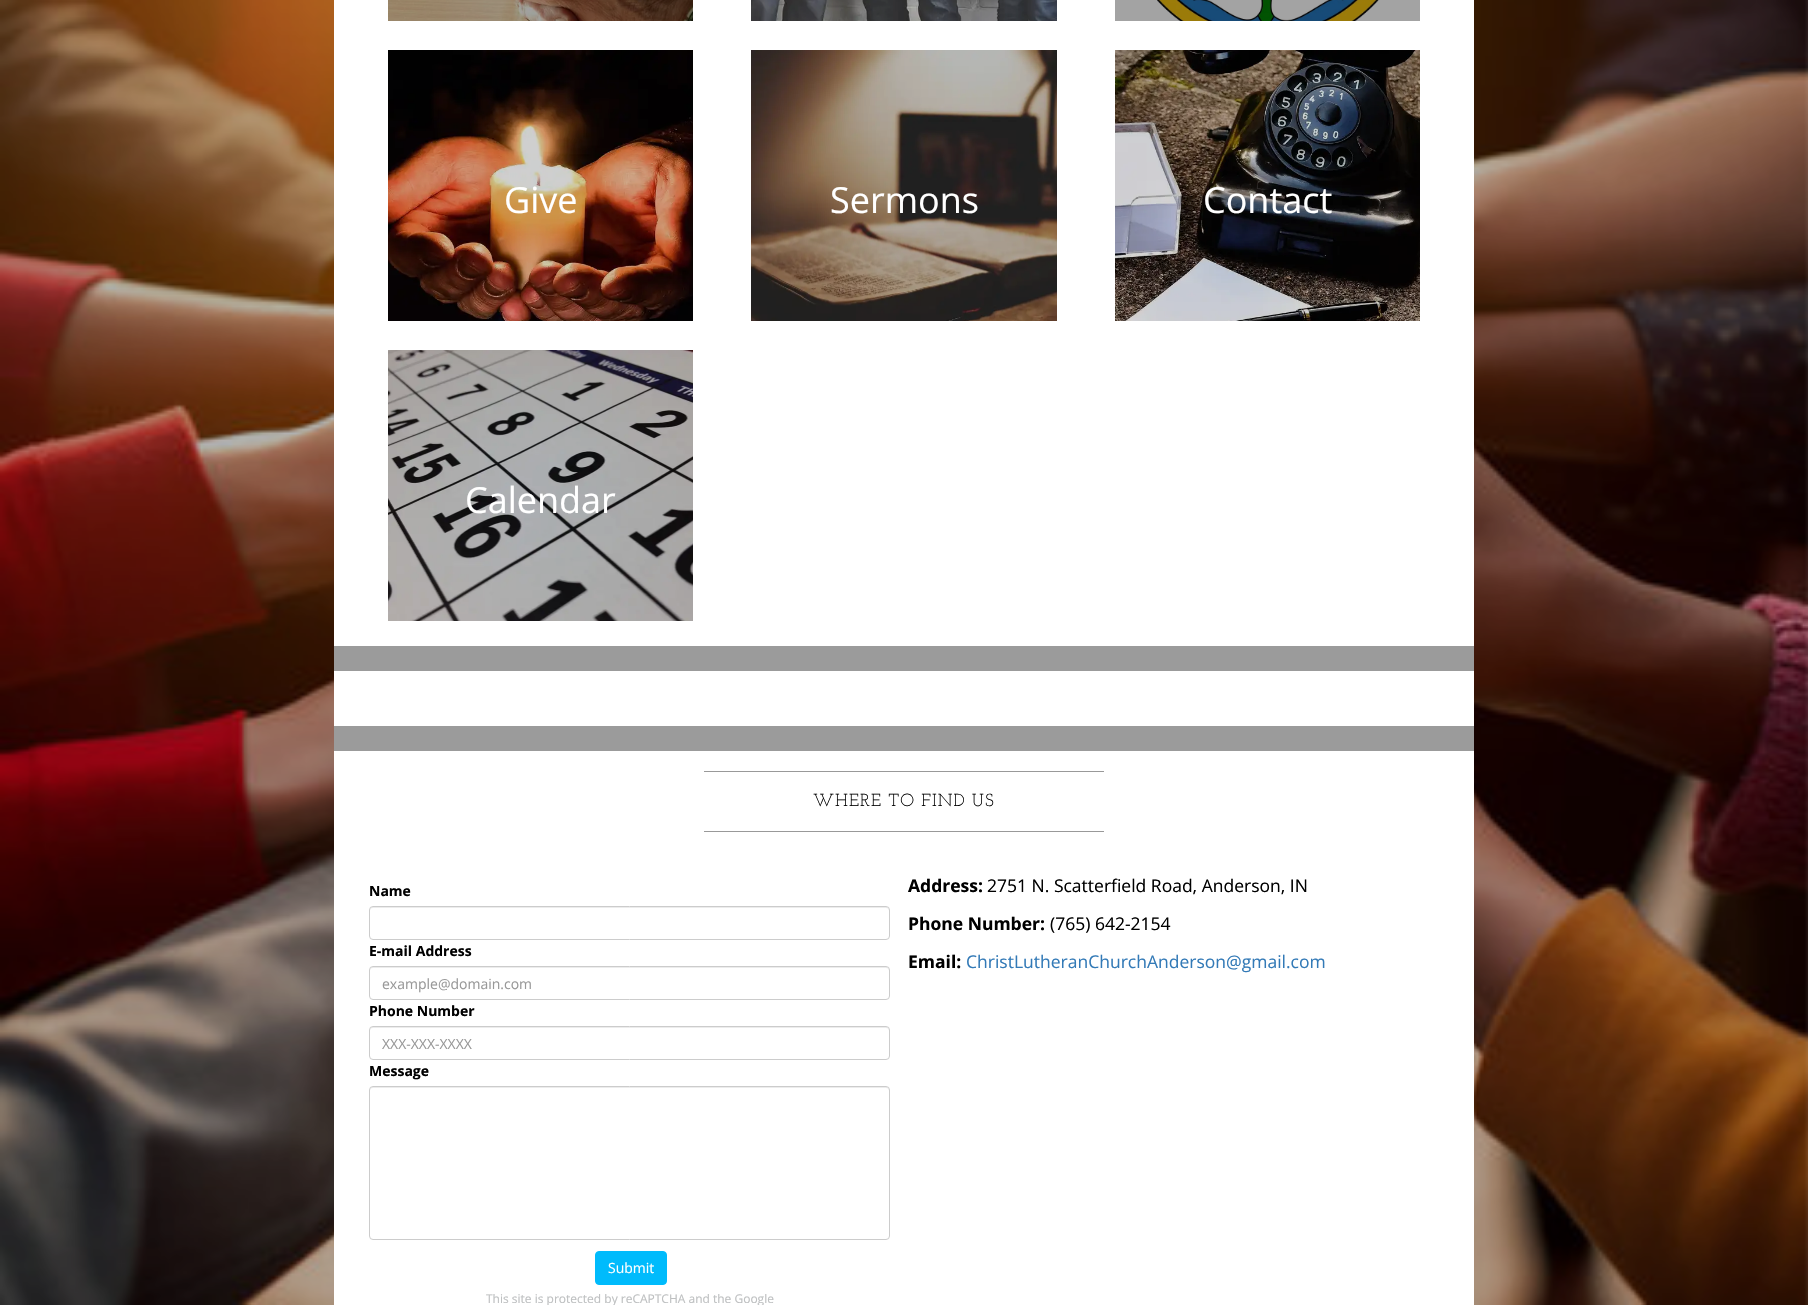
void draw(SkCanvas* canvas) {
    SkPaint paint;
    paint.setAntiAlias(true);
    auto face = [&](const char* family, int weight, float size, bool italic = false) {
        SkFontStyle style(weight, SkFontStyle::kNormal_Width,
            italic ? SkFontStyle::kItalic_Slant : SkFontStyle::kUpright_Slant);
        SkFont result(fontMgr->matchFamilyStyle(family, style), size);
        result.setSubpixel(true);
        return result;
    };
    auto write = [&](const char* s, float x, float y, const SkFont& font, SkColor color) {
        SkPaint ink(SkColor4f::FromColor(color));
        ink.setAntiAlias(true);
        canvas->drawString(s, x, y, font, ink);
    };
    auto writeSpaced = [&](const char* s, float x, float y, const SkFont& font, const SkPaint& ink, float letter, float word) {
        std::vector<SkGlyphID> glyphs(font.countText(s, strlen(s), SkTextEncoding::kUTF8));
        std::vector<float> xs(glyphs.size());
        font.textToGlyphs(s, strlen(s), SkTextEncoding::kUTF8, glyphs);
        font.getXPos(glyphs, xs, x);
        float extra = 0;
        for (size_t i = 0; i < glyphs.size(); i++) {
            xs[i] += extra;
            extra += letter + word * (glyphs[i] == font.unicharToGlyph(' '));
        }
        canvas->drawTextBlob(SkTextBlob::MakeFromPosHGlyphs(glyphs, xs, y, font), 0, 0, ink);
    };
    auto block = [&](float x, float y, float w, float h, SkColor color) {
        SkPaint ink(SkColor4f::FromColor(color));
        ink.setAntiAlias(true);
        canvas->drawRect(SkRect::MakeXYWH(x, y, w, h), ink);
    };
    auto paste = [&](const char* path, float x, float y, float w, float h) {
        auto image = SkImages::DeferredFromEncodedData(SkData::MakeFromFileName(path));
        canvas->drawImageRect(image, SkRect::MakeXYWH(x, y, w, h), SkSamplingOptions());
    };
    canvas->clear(SK_ColorWHITE);
    paste("pic1.png", 0, 0, 1808, 1305);
    block(334, 0, 1140, 646, SK_ColorWHITE);
    paste("pic2.png", 388, 0, 305, 21);
    paste("pic3.png", 751, 0, 306, 21);
    paste("pic4.png", 1157, 0, 222, 21);
    block(1115, 0, 305, 21, SkColorSetARGB(92, 0, 0, 0));
    paste("pic5.png", 388, 50, 305, 271);
    auto kFont1 = face("Open Sans", 400, 36);
    write("Give", 504, 213, kFont1, SK_ColorWHITE);
    paste("pic6.png", 751, 50, 306, 271);
    write("Sermons", 830, 213, kFont1, SK_ColorWHITE);
    paste("pic7.png", 1115, 50, 305, 271);
    write("Contact", 1203, 213, kFont1, SK_ColorWHITE);
    paste("pic8.png", 388, 350, 305, 271);
    write("Calendar", 465, 513, kFont1, SK_ColorWHITE);
    block(334, 646, 1140, 25, SkColorSetRGB(155, 155, 155));
    block(334, 671, 1140, 55, SK_ColorWHITE);
    block(334, 726, 1140, 25, SkColorSetRGB(155, 155, 155));
    block(334, 751, 1140, 554, SK_ColorWHITE);
    block(704, 771, 400, 1, SkColorSetRGB(153, 153, 153));
    auto kFont2 = face("Josefin Slab", 400, 17.5f);
    paint.setColor(SK_ColorBLACK);
    writeSpaced("WHERE TO FIND US", 813, 806, kFont2, paint, 1, 0);
    block(704, 831, 400, 1, SkColorSetRGB(153, 153, 153));
    auto kFont3 = face("Open Sans", 700, 14);
    write("Name", 369, 896, kFont3, SK_ColorBLACK);
    paint.setColor(SkColorSetRGB(236, 236, 236));
    canvas->drawPath(SkPathBuilder().moveTo(373, 908).lineTo(886, 908).cubicTo(888, 908, 889, 909, 889, 911).lineTo(889, 909).lineTo(887, 907).lineTo(373, 907).cubicTo(371, 907, 370, 909, 370, 911).cubicTo(370, 909, 371, 908, 373, 908).close().detach(), paint);
    paint.setStyle(SkPaint::kStroke_Style);
    paint.setStrokeWidth(1);
    paint.setColor(SkColorSetRGB(204, 204, 204));
    canvas->drawRoundRect(SkRect::MakeXYWH(369.5f, 906.5f, 520, 33), 3.5f, 3.5f, paint);
    write("E-mail Address", 369, 956, kFont3, SK_ColorBLACK);
    paint.setStyle(SkPaint::kFill_Style);
    paint.setColor(SkColorSetRGB(236, 236, 236));
    canvas->drawPath(SkPathBuilder().moveTo(373, 968).lineTo(886, 968).cubicTo(888, 968, 889, 969, 889, 971).lineTo(889, 969).lineTo(887, 967).lineTo(373, 967).cubicTo(371, 967, 370, 969, 370, 971).cubicTo(370, 969, 371, 968, 373, 968).close().detach(), paint);
    paint.setStyle(SkPaint::kStroke_Style);
    paint.setColor(SkColorSetRGB(204, 204, 204));
    canvas->drawRoundRect(SkRect::MakeXYWH(369.5f, 966.5f, 520, 33), 3.5f, 3.5f, paint);
    auto kFont4 = face("Open Sans", 400, 14);
    write("example@domain.com", 382, 989, kFont4, SkColorSetRGB(153, 153, 153));
    write("Phone Number", 369, 1016, kFont3, SK_ColorBLACK);
    paint.setStyle(SkPaint::kFill_Style);
    paint.setColor(SkColorSetRGB(236, 236, 236));
    canvas->drawPath(SkPathBuilder().moveTo(373, 1028).lineTo(886, 1028).cubicTo(888, 1028, 889, 1029, 889, 1031).lineTo(889, 1029).lineTo(887, 1027).lineTo(373, 1027).cubicTo(371, 1027, 370, 1029, 370, 1031).cubicTo(370, 1029, 371, 1028, 373, 1028).close().detach(), paint);
    paint.setStyle(SkPaint::kStroke_Style);
    paint.setColor(SkColorSetRGB(204, 204, 204));
    canvas->drawRoundRect(SkRect::MakeXYWH(369.5f, 1026.5f, 520, 33), 3.5f, 3.5f, paint);
    write("XXX-XXX-XXXX", 382, 1049, kFont4, SkColorSetRGB(153, 153, 153));
    write("Message", 369, 1076, kFont3, SK_ColorBLACK);
    paint.setStyle(SkPaint::kFill_Style);
    paint.setColor(SkColorSetRGB(236, 236, 236));
    canvas->drawPath(SkPathBuilder().moveTo(373, 1088).lineTo(886, 1088).cubicTo(888, 1088, 889, 1089, 889, 1091).lineTo(889, 1089).lineTo(887, 1087).lineTo(373, 1087).cubicTo(371, 1087, 370, 1089, 370, 1091).cubicTo(370, 1089, 371, 1088, 373, 1088).close().detach(), paint);
    paint.setStyle(SkPaint::kStroke_Style);
    paint.setColor(SkColorSetRGB(204, 204, 204));
    canvas->drawRoundRect(SkRect::MakeXYWH(369.5f, 1086.5f, 520, 153), 3.5f, 3.5f, paint);
    paint.setStyle(SkPaint::kFill_Style);
    paint.setColor(SkColorSetRGB(0, 187, 252));
    canvas->drawRoundRect(SkRect::MakeXYWH(595.5f, 1251.5f, 71, 33), 3.5f, 3.5f, paint);
    paint.setStyle(SkPaint::kStroke_Style);
    canvas->drawRoundRect(SkRect::MakeXYWH(595.5f, 1251.5f, 71, 33), 3.5f, 3.5f, paint);
    write("Submit", 608, 1273, kFont4, SK_ColorWHITE);
    auto kFont5 = face("Open Sans", 400, 12);
    write("This site is protected by reCAPTCHA and the Google", 486, 1303, kFont5, SkColorSetRGB(190, 192, 193));
    auto kFont6 = face("Open Sans", 700, 17.5f);
    write("Address:", 908, 892, kFont6, SK_ColorBLACK);
    auto kFont7 = face("Open Sans", 400, 17.5f);
    write("2751 N. Scatterfield Road, Anderson, IN", 987, 892, kFont7, SK_ColorBLACK);
    write("Phone Number:", 908, 930, kFont6, SK_ColorBLACK);
    write("(765) 642-2154", 1050, 930, kFont7, SK_ColorBLACK);
    write("Email:", 908, 968, kFont6, SK_ColorBLACK);
    write("ChristLutheranChurchAnderson@gmail.com", 966, 968, kFont7, SkColorSetRGB(51, 122, 183));
    paste("pic9.png", 1804, 0, 4, 1305);
}
